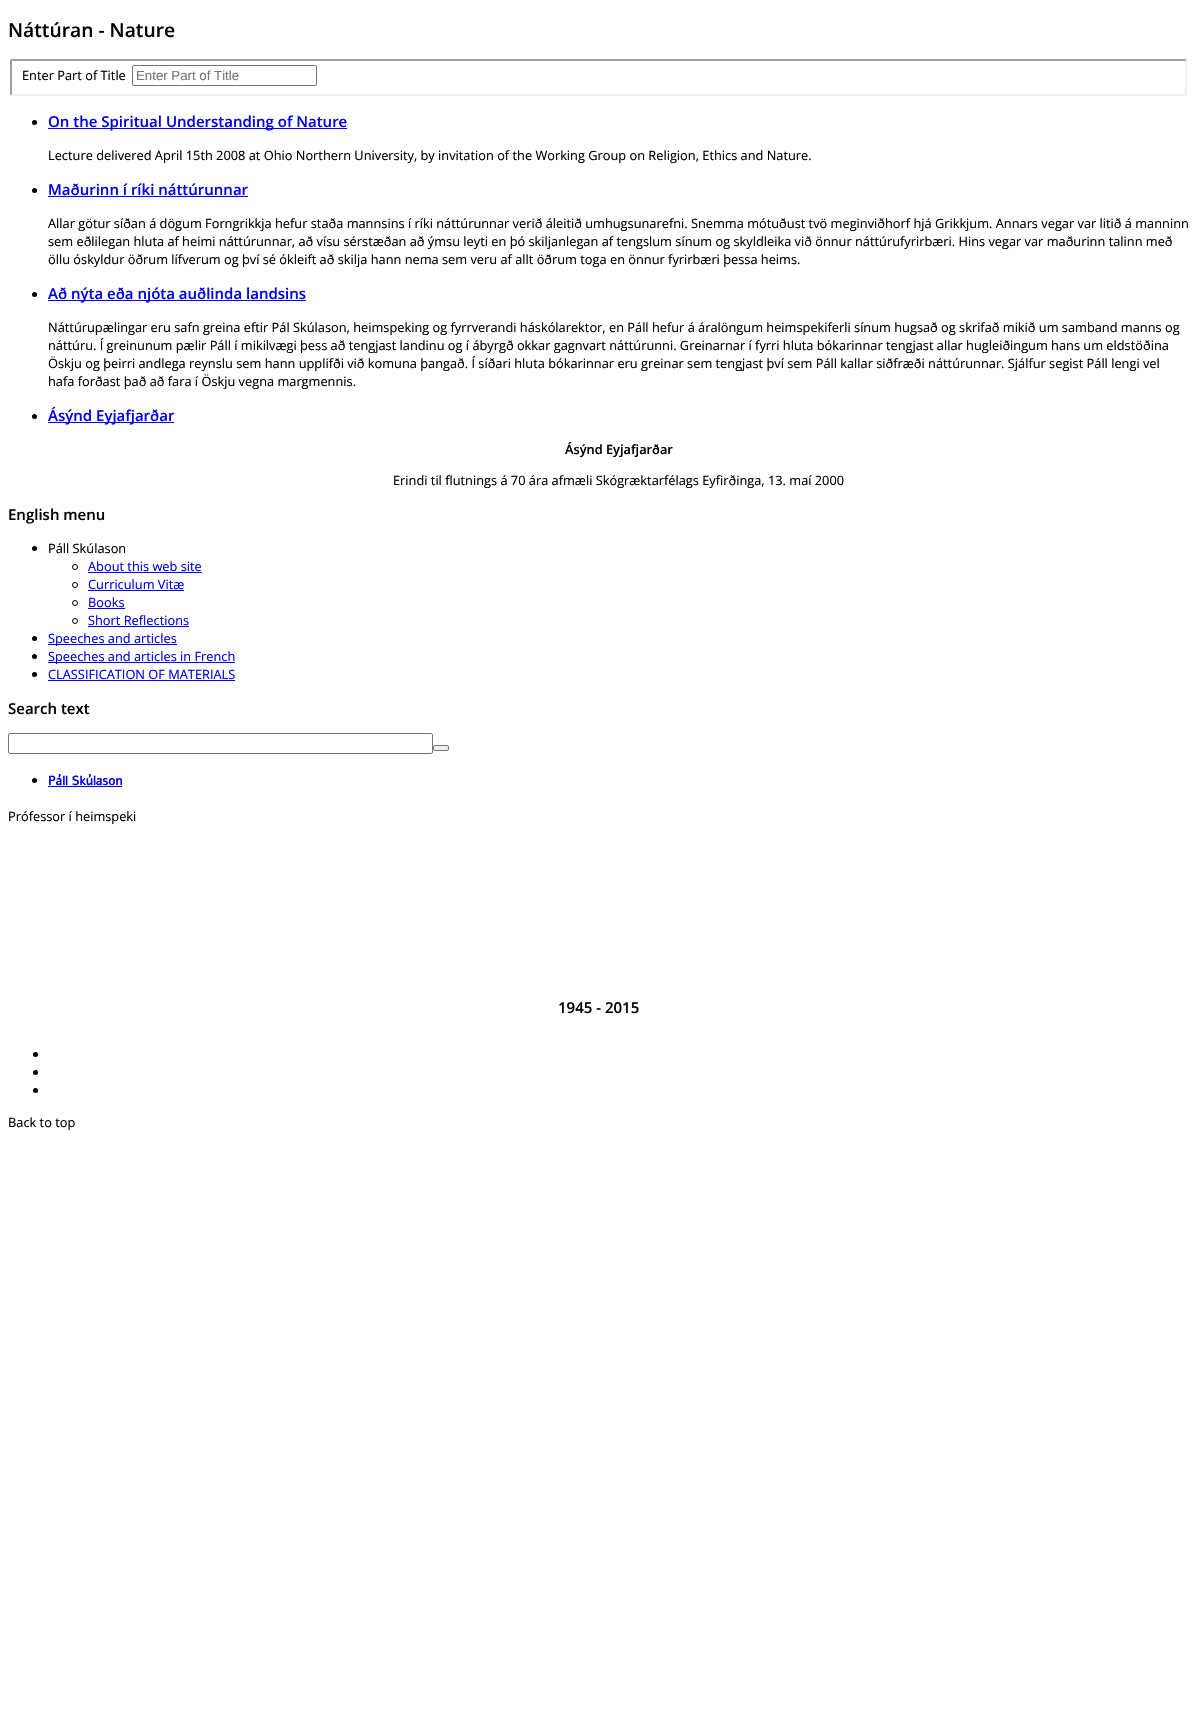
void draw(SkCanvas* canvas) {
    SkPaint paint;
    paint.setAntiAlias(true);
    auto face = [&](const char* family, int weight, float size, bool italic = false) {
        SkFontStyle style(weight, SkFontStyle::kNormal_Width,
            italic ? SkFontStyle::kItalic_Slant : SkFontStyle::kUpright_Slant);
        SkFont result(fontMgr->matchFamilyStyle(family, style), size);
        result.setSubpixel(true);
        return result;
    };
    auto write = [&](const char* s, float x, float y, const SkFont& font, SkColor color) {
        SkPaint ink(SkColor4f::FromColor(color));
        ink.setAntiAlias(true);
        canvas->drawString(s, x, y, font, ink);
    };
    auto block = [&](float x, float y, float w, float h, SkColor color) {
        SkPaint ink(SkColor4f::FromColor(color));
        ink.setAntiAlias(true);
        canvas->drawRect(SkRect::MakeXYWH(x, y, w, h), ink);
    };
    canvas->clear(SK_ColorWHITE);
    auto kFont1 = face("Open Sans", 600, 19.25f);
    write("Náttúran - Nature", 8, 37, kFont1, SK_ColorBLACK);
    paint.setColor(SkColorSetRGB(159, 159, 159));
    canvas->drawPath(SkPathBuilder().moveTo(10, 59).lineTo(1187, 59).lineTo(1185, 61).lineTo(12, 61).close().detach(), paint);
    paint.setColor(SkColorSetRGB(239, 239, 239));
    canvas->drawPath(SkPathBuilder().moveTo(1187, 59).lineTo(1187, 96).lineTo(1185, 94).lineTo(1185, 61).close().detach(), paint);
    canvas->drawPath(SkPathBuilder().moveTo(1187, 96).lineTo(10, 96).lineTo(12, 94).lineTo(1185, 94).close().detach(), paint);
    paint.setColor(SkColorSetRGB(159, 159, 159));
    canvas->drawPath(SkPathBuilder().moveTo(10, 96).lineTo(10, 59).lineTo(12, 61).lineTo(12, 94).close().detach(), paint);
    auto kFont2 = face("Open Sans", 400, 12.8f);
    write("Enter Part of Title", 22, 80, kFont2, SK_ColorBLACK);
    paint.setStyle(SkPaint::kStroke_Style);
    paint.setStrokeWidth(1);
    paint.setColor(SkColorSetRGB(118, 118, 118));
    canvas->drawRoundRect(SkRect::MakeXYWH(132.5f, 65.5f, 184, 20), 1.5f, 1.5f, paint);
    auto kFont3 = face("Liberation Sans", 400, 13.25f);
    write("Enter Part of Title", 136, 80, kFont3, SkColorSetRGB(117, 117, 117));
    paint.setStyle(SkPaint::kFill_Style);
    paint.setColor(SK_ColorBLACK);
    canvas->drawCircle(34.5f, 122.5f, 2.5f, paint);
    block(48, 128, 299, 1, SkColorSetRGB(0, 0, 238));
    auto kFont4 = face("Open Sans", 600, 15);
    write("On the Spiritual Understanding of Nature", 48, 127, kFont4, SkColorSetRGB(0, 0, 238));
    write("Lecture delivered April 15th 2008 at Ohio Northern University, by invitation of the Working Group on Religion, Ethics and Nature.", 48, 160, kFont2, SK_ColorBLACK);
    canvas->drawCircle(34.5f, 190.5f, 2.5f, paint);
    write("Maðurinn í ríki náttúrunnar", 48, 195, kFont4, SkColorSetRGB(0, 0, 238));
    block(48, 196, 200, 1, SkColorSetRGB(0, 0, 238));
    write("Allar götur síðan á dögum Forngrikkja hefur staða mannsins í ríki náttúrunnar verið áleitið umhugsunarefni. Snemma mótuðust tvö meginviðhorf hjá Grikkjum. Annars vegar var litið á manninn", 48, 228, kFont2, SK_ColorBLACK);
    write("sem eðlilegan hluta af heimi náttúrunnar, að vísu sérstæðan að ýmsu leyti en þó skiljanlegan af tengslum sínum og skyldleika við önnur náttúrufyrirbæri. Hins vegar var maðurinn talinn með", 48, 246, kFont2, SK_ColorBLACK);
    write("öllu óskyldur öðrum lífverum og því sé ókleift að skilja hann nema sem veru af allt öðrum toga en önnur fyrirbæri þessa heims.", 48, 264, kFont2, SK_ColorBLACK);
    canvas->drawCircle(34.5f, 294.5f, 2.5f, paint);
    block(48, 300, 258, 1, SkColorSetRGB(0, 0, 238));
    write("Að nýta eða njóta auðlinda landsins", 48, 299, kFont4, SkColorSetRGB(0, 0, 238));
    write("Náttúrupælingar eru safn greina eftir Pál Skúlason, heimspeking og fyrrverandi háskólarektor, en Páll hefur á áralöngum heimspekiferli sínum hugsað og skrifað mikið um samband manns og", 48, 332, kFont2, SK_ColorBLACK);
    write("náttúru. Í greinunum pælir Páll í mikilvægi þess að tengjast landinu og í ábyrgð okkar gagnvart náttúrunni. Greinarnar í fyrri hluta bókarinnar tengjast allar hugleiðingum hans um eldstöðina", 48, 350, kFont2, SK_ColorBLACK);
    write("Öskju og þeirri andlega reynslu sem hann upplifði við komuna þangað. Í síðari hluta bókarinnar eru greinar sem tengjast því sem Páll kallar siðfræði náttúrunnar. Sjálfur segist Páll lengi vel", 48, 368, kFont2, SK_ColorBLACK);
    write("hafa forðast það að fara í Öskju vegna margmennis.", 48, 386, kFont2, SK_ColorBLACK);
    canvas->drawCircle(34.5f, 416.5f, 2.5f, paint);
    block(48, 422, 126, 1, SkColorSetRGB(0, 0, 238));
    write("Ásýnd Eyjafjarðar", 48, 421, kFont4, SkColorSetRGB(0, 0, 238));
    auto kFont5 = face("Open Sans", 600, 12.8f);
    write("Ásýnd Eyjafjarðar", 565, 454, kFont5, SK_ColorBLACK);
    write("Erindi til flutnings á 70 ára afmæli Skógræktarfélags Eyfirðinga, 13. maí 2000", 393, 485, kFont2, SK_ColorBLACK);
    write("English menu", 8, 520, kFont4, SK_ColorBLACK);
    canvas->drawCircle(34.5f, 548.5f, 2.5f, paint);
    write("Páll Skúlason", 48, 553, kFont2, SK_ColorBLACK);
    paint.setStyle(SkPaint::kStroke_Style);
    canvas->drawCircle(75, 567, 2.5f, paint);
    write("About this web site", 88, 571, kFont2, SkColorSetRGB(0, 0, 238));
    block(88, 572, 114, 1, SkColorSetRGB(0, 0, 238));
    canvas->drawCircle(75, 585, 2.5f, paint);
    write("Curriculum Vitæ", 88, 589, kFont2, SkColorSetRGB(0, 0, 238));
    block(88, 590, 96, 1, SkColorSetRGB(0, 0, 238));
    canvas->drawCircle(75, 603, 2.5f, paint);
    write("Books", 88, 607, kFont2, SkColorSetRGB(0, 0, 238));
    block(88, 608, 37, 1, SkColorSetRGB(0, 0, 238));
    canvas->drawCircle(75, 621, 2.5f, paint);
    write("Short Reflections", 88, 625, kFont2, SkColorSetRGB(0, 0, 238));
    block(88, 626, 101, 1, SkColorSetRGB(0, 0, 238));
    paint.setStyle(SkPaint::kFill_Style);
    canvas->drawCircle(34.5f, 638.5f, 2.5f, paint);
    block(48, 644, 129, 1, SkColorSetRGB(0, 0, 238));
    write("Speeches and articles", 48, 643, kFont2, SkColorSetRGB(0, 0, 238));
    canvas->drawCircle(34.5f, 656.5f, 2.5f, paint);
    block(48, 662, 187, 1, SkColorSetRGB(0, 0, 238));
    write("Speeches and articles in French", 48, 661, kFont2, SkColorSetRGB(0, 0, 238));
    canvas->drawCircle(34.5f, 674.5f, 2.5f, paint);
    write("CLASSIFICATION OF MATERIALS", 48, 679, kFont2, SkColorSetRGB(0, 0, 238));
    block(48, 680, 187, 1, SkColorSetRGB(0, 0, 238));
    write("Search text", 8, 714, kFont4, SK_ColorBLACK);
    paint.setStyle(SkPaint::kStroke_Style);
    paint.setColor(SkColorSetRGB(118, 118, 118));
    canvas->drawRoundRect(SkRect::MakeXYWH(8.5f, 733.5f, 424, 20), 1.5f, 1.5f, paint);
    paint.setStyle(SkPaint::kFill_Style);
    paint.setColor(SkColorSetRGB(239, 239, 239));
    canvas->drawRoundRect(SkRect::MakeXYWH(433.5f, 745.5f, 15, 5), 1.5f, 1.5f, paint);
    paint.setStyle(SkPaint::kStroke_Style);
    paint.setColor(SkColorSetRGB(118, 118, 118));
    canvas->drawRoundRect(SkRect::MakeXYWH(433.5f, 745.5f, 15, 5), 1.5f, 1.5f, paint);
    paint.setStyle(SkPaint::kFill_Style);
    paint.setColor(SK_ColorBLACK);
    canvas->drawCircle(34.5f, 780.5f, 2.5f, paint);
    auto kFont6 = face("Alef", 700, 12.8f);
    write("Páll Skúlason", 48, 785, kFont6, SkColorSetRGB(0, 0, 238));
    block(48, 786, 74, 1, SkColorSetRGB(0, 0, 238));
    write("Prófessor í heimspeki", 8, 821, kFont2, SK_ColorBLACK);
    write("1945 - 2015", 558, 1013, kFont4, SK_ColorBLACK);
    canvas->drawCircle(35.5f, 1054.5f, 2.5f, paint);
    canvas->drawCircle(35.5f, 1072.5f, 2.5f, paint);
    canvas->drawCircle(35.5f, 1090.5f, 2.5f, paint);
    write("Back to top", 8, 1127, kFont2, SK_ColorBLACK);
}
